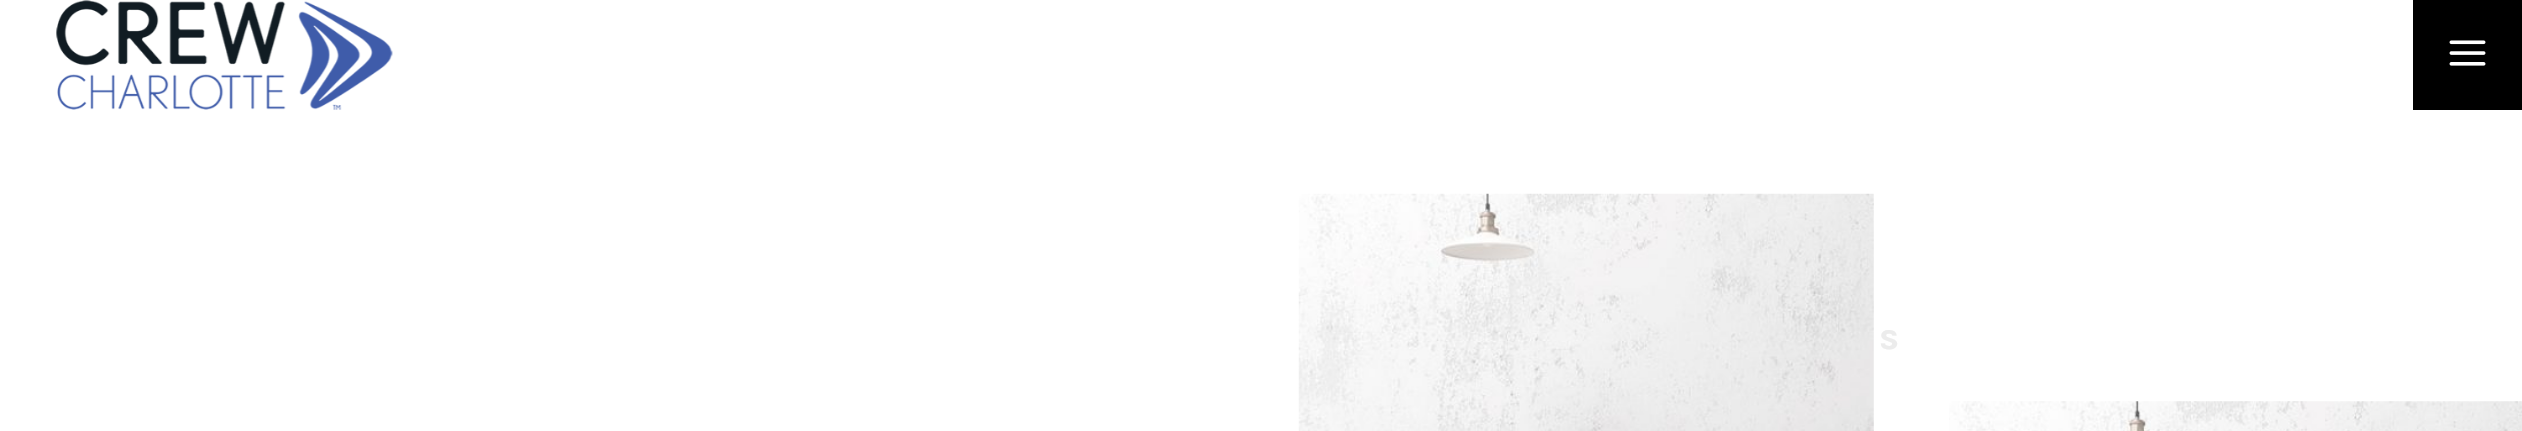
void draw(SkCanvas* canvas) {
    SkPaint paint;
    paint.setAntiAlias(true);
    auto face = [&](const char* family, int weight, float size, bool italic = false) {
        SkFontStyle style(weight, SkFontStyle::kNormal_Width,
            italic ? SkFontStyle::kItalic_Slant : SkFontStyle::kUpright_Slant);
        SkFont result(fontMgr->matchFamilyStyle(family, style), size);
        result.setSubpixel(true);
        return result;
    };
    auto writeSpaced = [&](const char* s, float x, float y, const SkFont& font, const SkPaint& ink, float letter, float word) {
        std::vector<SkGlyphID> glyphs(font.countText(s, strlen(s), SkTextEncoding::kUTF8));
        std::vector<float> xs(glyphs.size());
        font.textToGlyphs(s, strlen(s), SkTextEncoding::kUTF8, glyphs);
        font.getXPos(glyphs, xs, x);
        float extra = 0;
        for (size_t i = 0; i < glyphs.size(); i++) {
            xs[i] += extra;
            extra += letter + word * (glyphs[i] == font.unicharToGlyph(' '));
        }
        canvas->drawTextBlob(SkTextBlob::MakeFromPosHGlyphs(glyphs, xs, y, font), 0, 0, ink);
    };
    auto block = [&](float x, float y, float w, float h, SkColor color) {
        SkPaint ink(SkColor4f::FromColor(color));
        ink.setAntiAlias(true);
        canvas->drawRect(SkRect::MakeXYWH(x, y, w, h), ink);
    };
    auto paste = [&](const char* path, float x, float y, float w, float h) {
        auto image = SkImages::DeferredFromEncodedData(SkData::MakeFromFileName(path));
        canvas->drawImageRect(image, SkRect::MakeXYWH(x, y, w, h), SkSamplingOptions());
    };
    canvas->clear(SK_ColorWHITE);
    paste("pic1.png", 56, 0, 337, 110);
    block(2413, 0, 109, 110, SK_ColorBLACK);
    paste("pic2.png", 2449, 40, 37, 26);
    paste("pic3.png", 1298, 193, 576, 238);
    auto kFont1 = face("Karla", 700, 38);
    paint.setColor(SkColorSetRGB(236, 236, 236));
    writeSpaced("s", 1879, 349, kFont1, paint, -1, 0);
    paste("pic4.png", 1949, 401, 573, 30);
}
